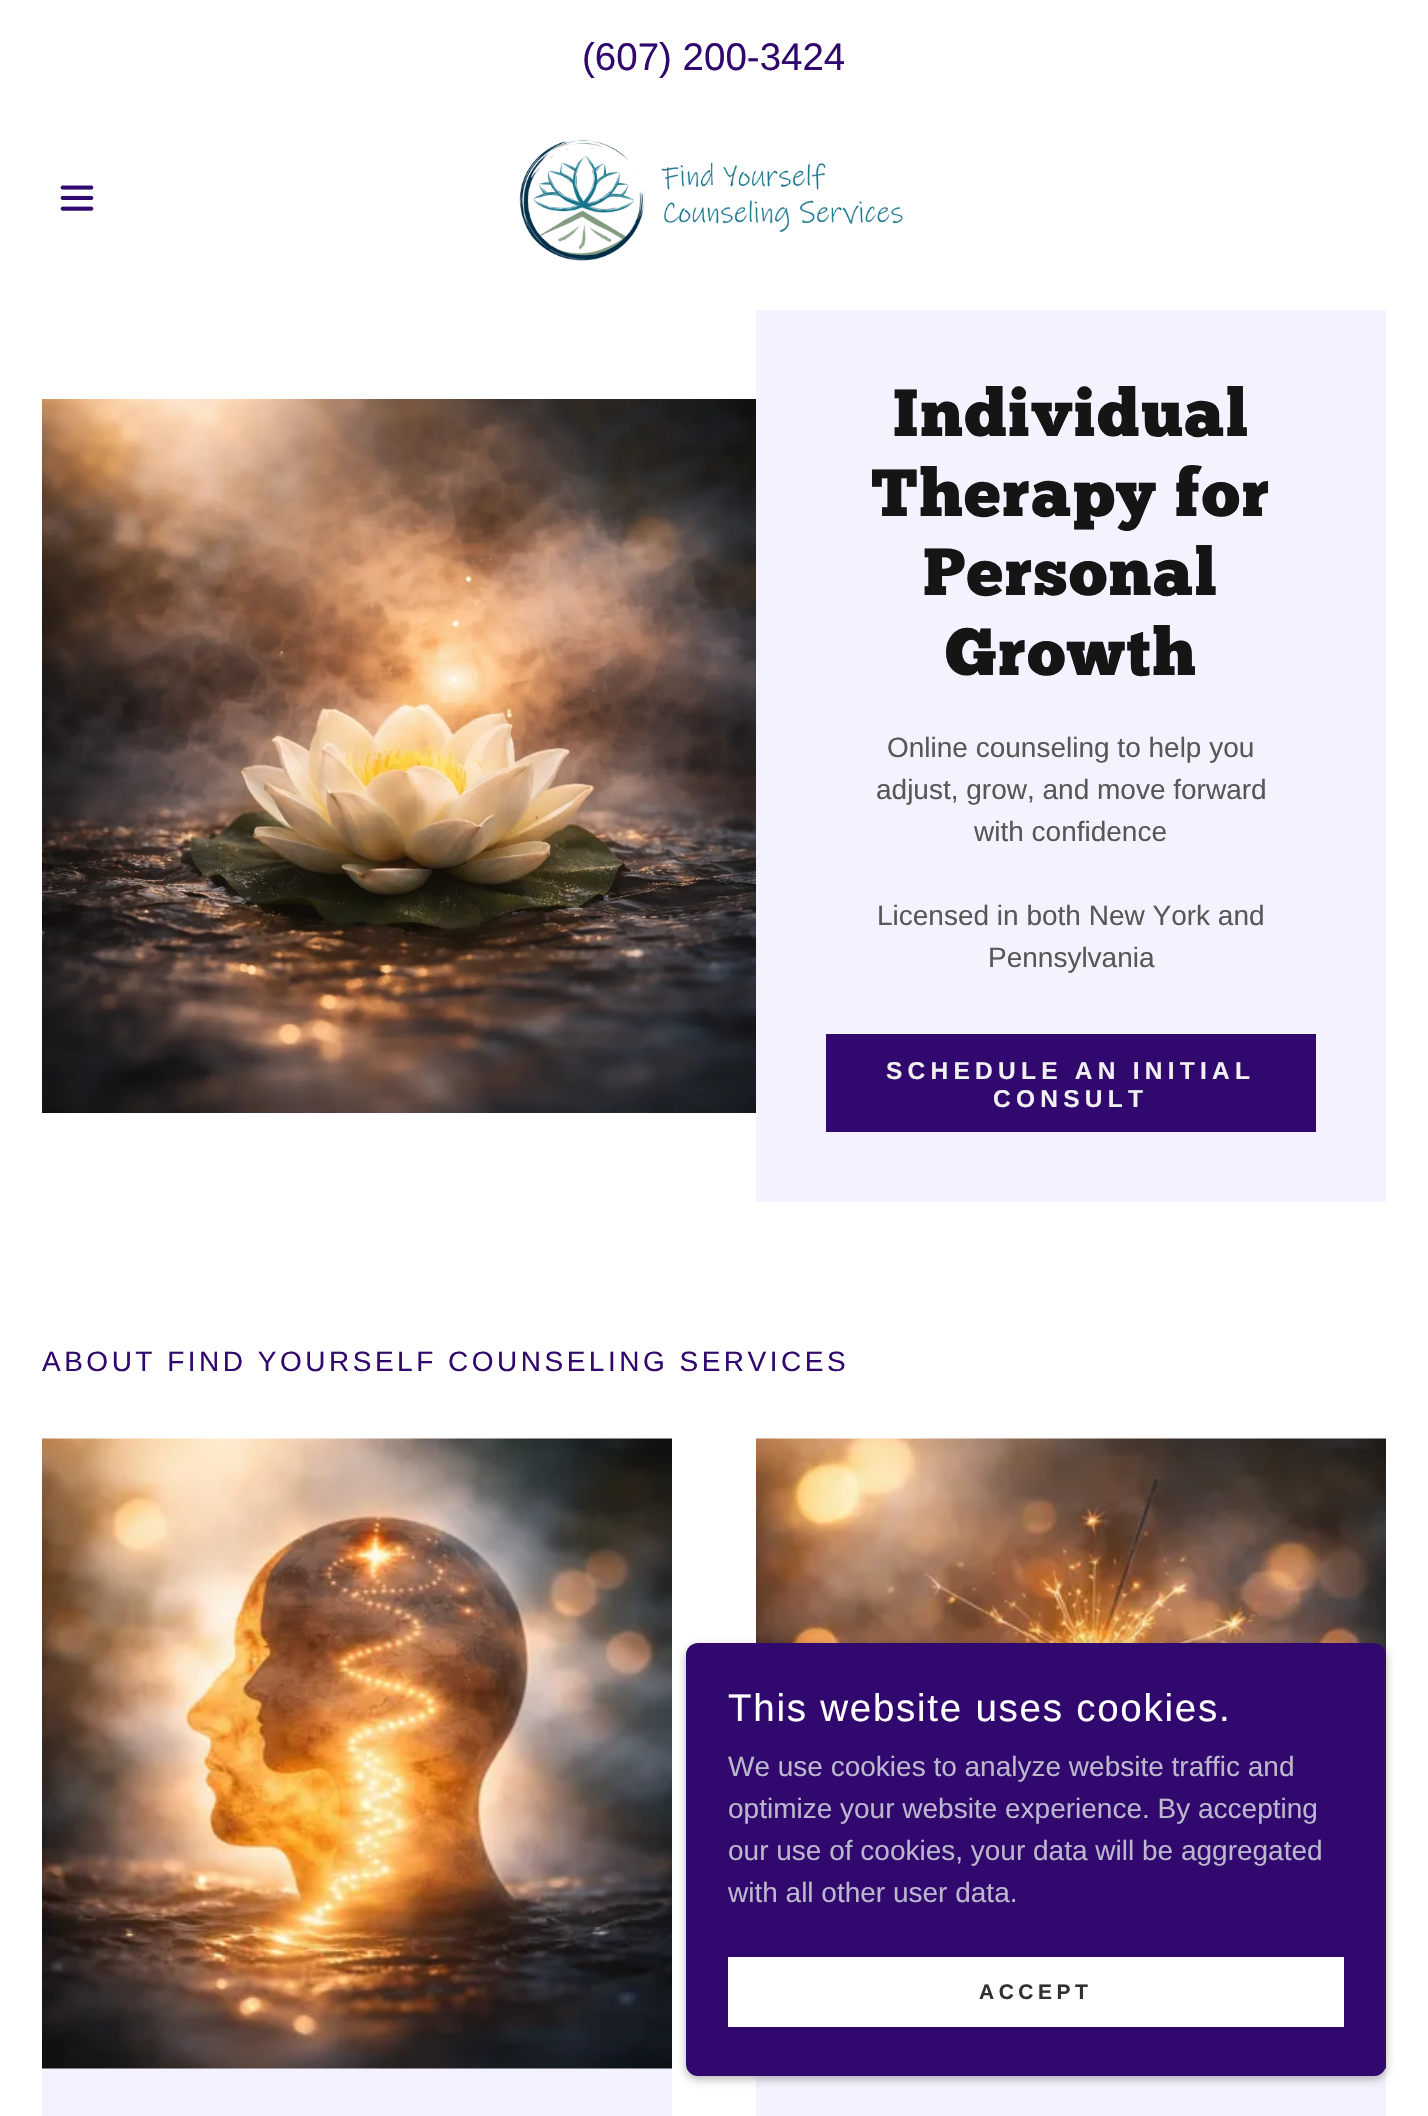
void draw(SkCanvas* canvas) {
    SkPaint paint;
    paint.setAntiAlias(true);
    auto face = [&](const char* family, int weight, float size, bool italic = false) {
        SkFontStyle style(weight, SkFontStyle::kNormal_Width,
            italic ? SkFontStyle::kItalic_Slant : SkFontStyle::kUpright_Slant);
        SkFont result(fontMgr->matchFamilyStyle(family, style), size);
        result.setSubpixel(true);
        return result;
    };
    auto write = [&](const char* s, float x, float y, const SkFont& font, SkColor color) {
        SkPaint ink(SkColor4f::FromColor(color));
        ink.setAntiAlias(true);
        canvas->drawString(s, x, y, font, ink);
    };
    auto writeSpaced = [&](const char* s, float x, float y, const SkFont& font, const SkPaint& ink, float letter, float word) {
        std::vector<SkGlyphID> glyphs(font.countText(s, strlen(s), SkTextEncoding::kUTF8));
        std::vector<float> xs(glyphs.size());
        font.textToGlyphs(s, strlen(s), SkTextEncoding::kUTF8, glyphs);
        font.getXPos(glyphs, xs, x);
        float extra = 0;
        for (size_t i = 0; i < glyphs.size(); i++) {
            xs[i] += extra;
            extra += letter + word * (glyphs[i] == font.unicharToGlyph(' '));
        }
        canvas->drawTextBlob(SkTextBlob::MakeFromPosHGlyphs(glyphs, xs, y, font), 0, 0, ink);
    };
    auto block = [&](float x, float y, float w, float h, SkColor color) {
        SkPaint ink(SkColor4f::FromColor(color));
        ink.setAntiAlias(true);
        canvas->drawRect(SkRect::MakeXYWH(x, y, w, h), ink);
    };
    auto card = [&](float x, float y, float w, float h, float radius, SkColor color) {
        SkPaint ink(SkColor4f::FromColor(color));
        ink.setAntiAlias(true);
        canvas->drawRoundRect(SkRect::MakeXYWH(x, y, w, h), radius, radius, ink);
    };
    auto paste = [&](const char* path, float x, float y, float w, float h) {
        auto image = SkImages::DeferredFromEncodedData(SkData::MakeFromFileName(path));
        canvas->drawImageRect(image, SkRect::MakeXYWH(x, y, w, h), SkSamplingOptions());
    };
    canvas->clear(SK_ColorWHITE);
    auto kFont1 = face("Liberation Sans", 400, 38.5f);
    write("(607) 200-3424", 582, 70, kFont1, SkColorSetRGB(49, 8, 110));
    paste("pic1.png", 60, 185, 34, 26);
    paste("pic2.png", 519, 139, 384, 122);
    paste("pic3.png", 42, 399, 714, 714);
    block(756, 310, 630, 892, SkColorSetRGB(244, 242, 254));
    auto kFont2 = face("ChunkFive", 400, 66.5f);
    paint.setColor(SkColorSetRGB(21, 21, 21));
    writeSpaced("Individual", 893, 436, kFont2, paint, 1.5f, 0);
    writeSpaced("Therapy for", 871, 516, kFont2, paint, 1.5f, 0);
    writeSpaced("Personal", 923, 595, kFont2, paint, 1.5f, 0);
    writeSpaced("Growth", 945, 675, kFont2, paint, 1.5f, 0);
    auto kFont3 = face("Liberation Sans", 400, 28);
    write("Online counseling to help you", 887, 757, kFont3, SkColorSetRGB(87, 87, 87));
    write("adjust, grow, and move forward", 876, 799, kFont3, SkColorSetRGB(87, 87, 87));
    write("with confidence", 974, 841, kFont3, SkColorSetRGB(87, 87, 87));
    write("Licensed in both New York and", 877, 925, kFont3, SkColorSetRGB(87, 87, 87));
    write("Pennsylvania", 988, 967, kFont3, SkColorSetRGB(87, 87, 87));
    block(826, 1034, 490, 98, SkColorSetRGB(49, 8, 110));
    auto kFont4 = face("Liberation Sans", 700, 24.5f);
    paint.setColor(SkColorSetRGB(241, 241, 242));
    writeSpaced("SCHEDULE AN INITIAL", 886, 1079, kFont4, paint, 5.25f, 0);
    writeSpaced("CONSULT", 993, 1107, kFont4, paint, 5.25f, 0);
    paint.setColor(SkColorSetRGB(49, 8, 110));
    writeSpaced("ABOUT FIND YOURSELF COUNSELING SERVICES", 42, 1371, kFont3, paint, 3.5f, 0);
    block(42, 2068, 630, 48, SkColorSetRGB(244, 242, 254));
    paste("pic4.png", 42, 1438, 630, 631);
    block(756, 2068, 630, 48, SkColorSetRGB(244, 242, 254));
    paste("pic5.png", 756, 1438, 630, 631);
    paint.setColor(SkColorSetARGB(77, 0, 0, 0));
    paint.setMaskFilter(SkMaskFilter::MakeBlur(kNormal_SkBlurStyle, 5));
    canvas->drawRoundRect(SkRect::MakeXYWH(686, 1647, 700, 432), 12, 12, paint);
    paint.setMaskFilter(nullptr);
    card(686, 1643, 700, 433, 12, SkColorSetRGB(49, 8, 110));
    paint.setColor(SK_ColorWHITE);
    writeSpaced("This website uses cookies.", 728, 1721, kFont1, paint, 1.75f, 0);
    write("We use cookies to analyze website traffic and", 728, 1776, kFont3, SkColorSetRGB(187, 183, 205));
    write("optimize your website experience. By accepting", 728, 1818, kFont3, SkColorSetRGB(187, 183, 205));
    write("our use of cookies, your data will be aggregated", 728, 1860, kFont3, SkColorSetRGB(187, 183, 205));
    write("with all other user data.", 728, 1902, kFont3, SkColorSetRGB(187, 183, 205));
    block(728, 1957, 616, 70, SK_ColorWHITE);
    auto kFont5 = face("Liberation Sans", 700, 21);
    paint.setColor(SkColorSetRGB(48, 48, 48));
    writeSpaced("ACCEPT", 979, 1999, kFont5, paint, 4.5f, 0);
}
